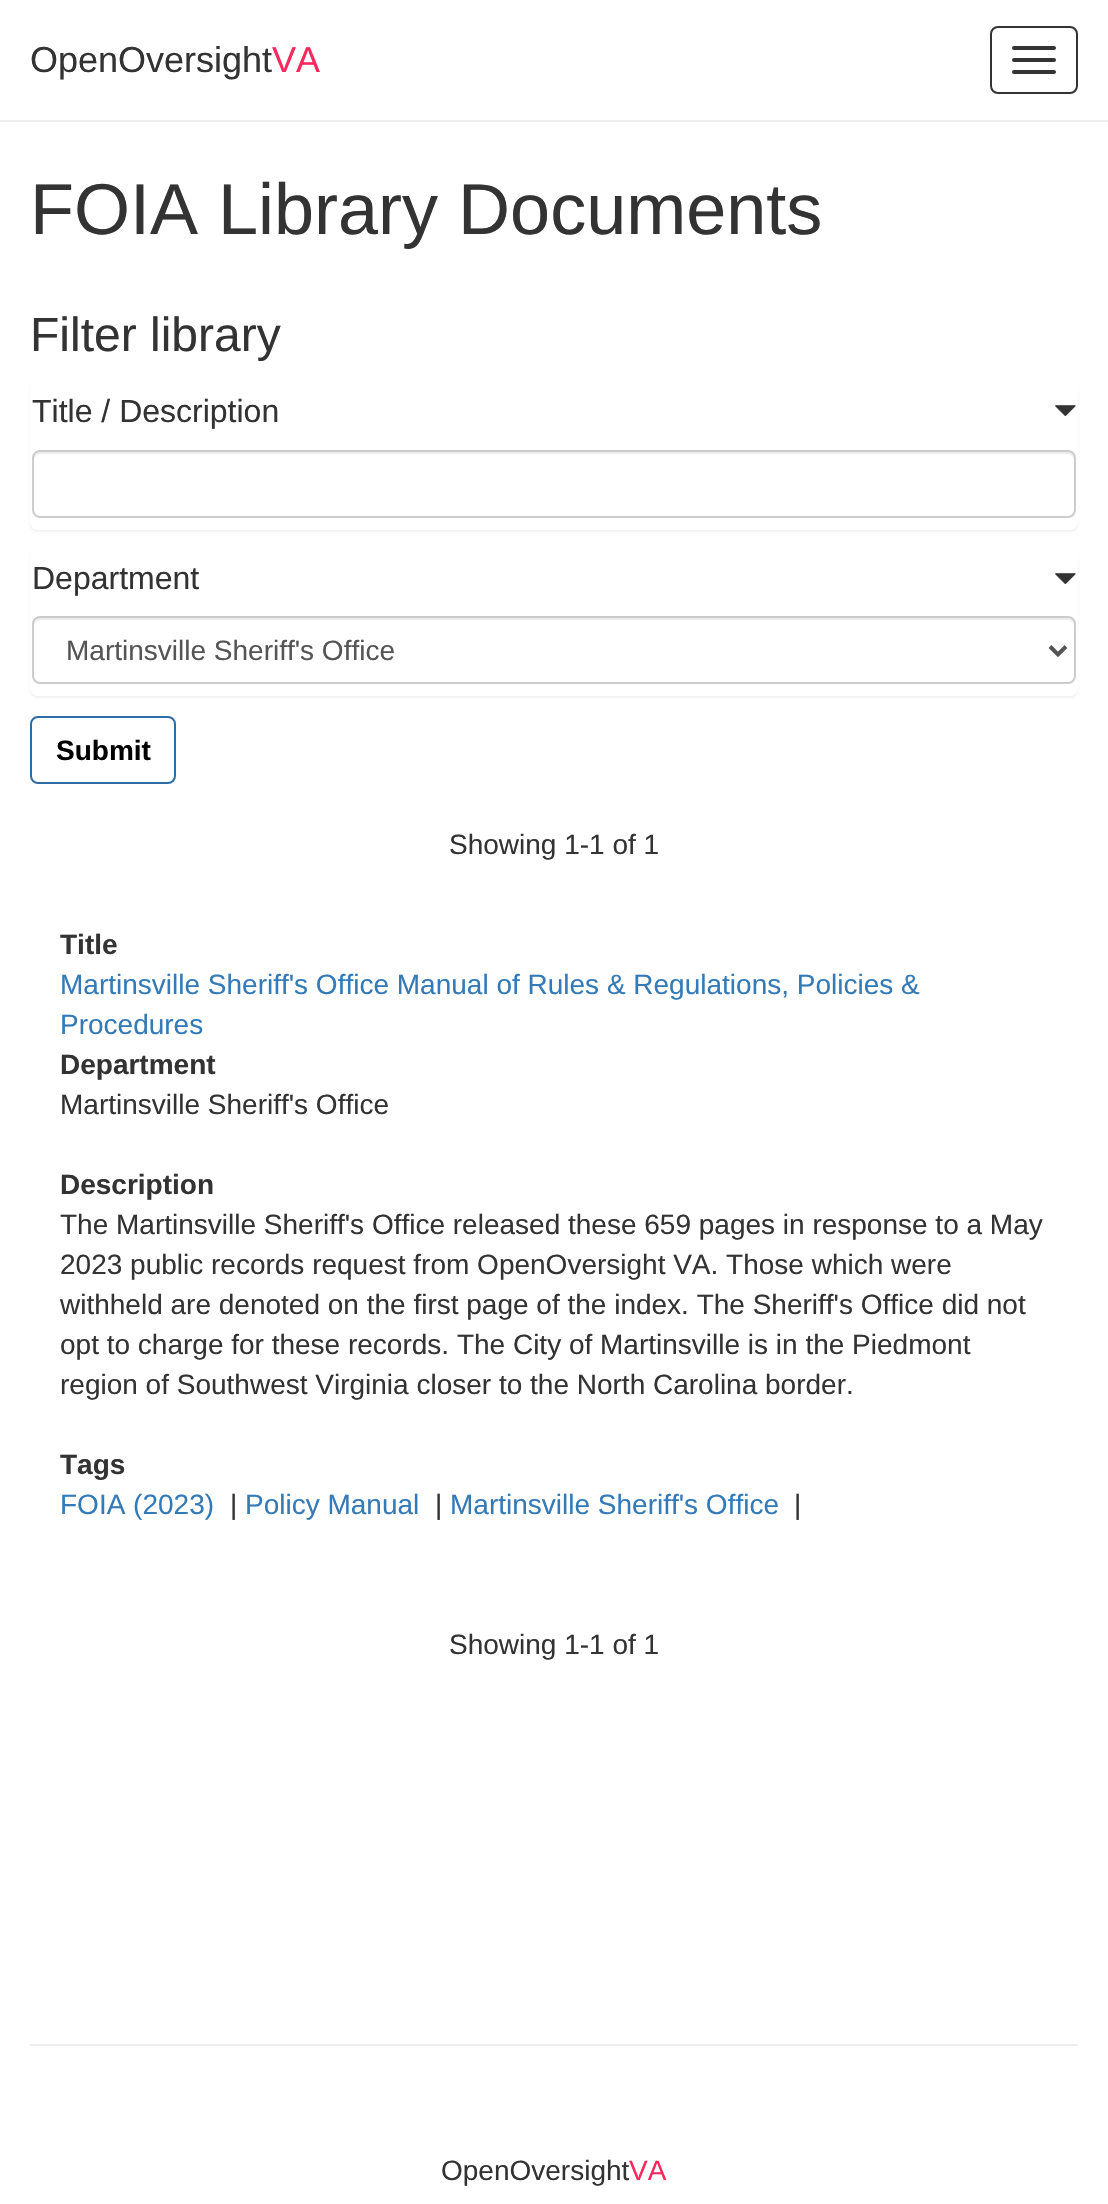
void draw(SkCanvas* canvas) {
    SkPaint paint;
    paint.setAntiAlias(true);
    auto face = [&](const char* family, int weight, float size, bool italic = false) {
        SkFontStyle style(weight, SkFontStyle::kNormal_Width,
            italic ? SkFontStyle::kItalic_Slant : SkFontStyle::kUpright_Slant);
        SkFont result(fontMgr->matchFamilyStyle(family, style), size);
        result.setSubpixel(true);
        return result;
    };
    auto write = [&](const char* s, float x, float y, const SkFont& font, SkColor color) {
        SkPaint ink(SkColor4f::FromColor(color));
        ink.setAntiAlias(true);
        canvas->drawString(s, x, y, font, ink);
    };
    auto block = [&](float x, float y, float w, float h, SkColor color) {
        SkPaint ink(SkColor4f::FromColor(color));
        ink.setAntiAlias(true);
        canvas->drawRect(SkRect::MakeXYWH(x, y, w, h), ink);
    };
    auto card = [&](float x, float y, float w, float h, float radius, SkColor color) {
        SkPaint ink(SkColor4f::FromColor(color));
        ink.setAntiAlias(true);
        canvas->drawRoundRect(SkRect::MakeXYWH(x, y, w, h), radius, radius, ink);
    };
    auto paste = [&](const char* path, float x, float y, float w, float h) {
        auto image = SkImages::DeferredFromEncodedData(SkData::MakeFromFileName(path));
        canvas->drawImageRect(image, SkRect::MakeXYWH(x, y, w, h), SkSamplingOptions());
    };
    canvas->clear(SK_ColorWHITE);
    block(0, 120, 1108, 2, SkColorSetRGB(238, 238, 238));
    auto kFont1 = face("Liberation Sans", 400, 36);
    write("OpenOversight", 30, 72, kFont1, SkColorSetRGB(51, 51, 51));
    write("VA", 272, 72, kFont1, SkColorSetRGB(249, 40, 92));
    paint.setStyle(SkPaint::kStroke_Style);
    paint.setStrokeWidth(2);
    paint.setColor(SkColorSetRGB(51, 51, 51));
    canvas->drawRoundRect(SkRect::MakeXYWH(991, 27, 86, 66), 7, 7, paint);
    card(1012, 46, 44, 4, 2, SkColorSetRGB(51, 51, 51));
    card(1012, 58, 44, 4, 2, SkColorSetRGB(51, 51, 51));
    card(1012, 70, 44, 4, 2, SkColorSetRGB(51, 51, 51));
    auto kFont2 = face("Liberation Sans", 400, 72);
    write("FOIA Library Documents", 30, 234, kFont2, SkColorSetRGB(51, 51, 51));
    auto kFont3 = face("Liberation Sans", 400, 48);
    write("Filter library", 30, 351, kFont3, SkColorSetRGB(51, 51, 51));
    paint.setStyle(SkPaint::kFill_Style);
    paint.setColor(SkColorSetARGB(13, 0, 0, 0));
    paint.setMaskFilter(SkMaskFilter::MakeBlur(kNormal_SkBlurStyle, 1));
    canvas->drawRoundRect(SkRect::MakeXYWH(30, 384, 1048, 148), 8, 8, paint);
    paint.setMaskFilter(nullptr);
    card(30, 382, 1048, 148, 8, SK_ColorWHITE);
    auto kFont4 = face("Liberation Sans", 400, 32);
    write("Title / Description", 32, 422, kFont4, SkColorSetRGB(51, 51, 51));
    paste("pic1.png", 1055, 405, 21, 11);
    paint.setColor(SkColorSetRGB(236, 236, 236));
    canvas->drawPath(SkPathBuilder().moveTo(40, 454).lineTo(1068, 454).cubicTo(1071, 454, 1074, 457, 1074, 460).lineTo(1074, 458).cubicTo(1074, 455, 1071, 452, 1068, 452).lineTo(40, 452).cubicTo(37, 452, 34, 455, 34, 458).lineTo(34, 460).cubicTo(34, 457, 37, 454, 40, 454).close().detach(), paint);
    paint.setStyle(SkPaint::kStroke_Style);
    paint.setColor(SkColorSetRGB(204, 204, 204));
    canvas->drawRoundRect(SkRect::MakeXYWH(33, 451, 1042, 66), 7, 7, paint);
    paint.setStyle(SkPaint::kFill_Style);
    paint.setColor(SkColorSetARGB(13, 0, 0, 0));
    paint.setMaskFilter(SkMaskFilter::MakeBlur(kNormal_SkBlurStyle, 1));
    canvas->drawRoundRect(SkRect::MakeXYWH(30, 552, 1048, 146), 8, 8, paint);
    paint.setMaskFilter(nullptr);
    card(30, 550, 1048, 146, 8, SK_ColorWHITE);
    write("Department", 32, 589, kFont4, SkColorSetRGB(51, 51, 51));
    paste("pic1.png", 1055, 573, 21, 11);
    paint.setColor(SkColorSetRGB(236, 236, 236));
    canvas->drawPath(SkPathBuilder().moveTo(40, 620).lineTo(1068, 620).cubicTo(1071, 620, 1074, 623, 1074, 626).lineTo(1074, 624).cubicTo(1074, 621, 1071, 618, 1068, 618).lineTo(40, 618).cubicTo(37, 618, 34, 621, 34, 624).lineTo(34, 626).cubicTo(34, 623, 37, 620, 40, 620).close().detach(), paint);
    paint.setStyle(SkPaint::kStroke_Style);
    paint.setColor(SkColorSetRGB(204, 204, 204));
    canvas->drawRoundRect(SkRect::MakeXYWH(33, 617, 1042, 66), 7, 7, paint);
    paint.setStrokeWidth(4);
    paint.setColor(SkColorSetRGB(85, 85, 85));
    canvas->drawPath(SkPathBuilder().moveTo(1050, 646.5f).lineTo(1058, 654.5f).lineTo(1066, 646.5f).detach(), paint);
    auto kFont5 = face("Liberation Sans", 400, 28);
    write("Martinsville Sheriff's Office", 66, 660, kFont5, SkColorSetRGB(85, 85, 85));
    paint.setStrokeWidth(2);
    paint.setColor(SkColorSetRGB(46, 109, 164));
    canvas->drawRoundRect(SkRect::MakeXYWH(31, 717, 144, 66), 7, 7, paint);
    auto kFont6 = face("Liberation Sans", 700, 28);
    write("Submit", 56, 760, kFont6, SK_ColorBLACK);
    write("Showing 1-1 of 1", 449, 854, kFont5, SkColorSetRGB(51, 51, 51));
    write("Title", 60, 954, kFont6, SkColorSetRGB(51, 51, 51));
    write("Martinsville Sheriff's Office Manual of Rules & Regulations, Policies &", 60, 994, kFont5, SkColorSetRGB(51, 122, 183));
    write("Procedures", 60, 1034, kFont5, SkColorSetRGB(51, 122, 183));
    write("Department", 60, 1074, kFont6, SkColorSetRGB(51, 51, 51));
    write("Martinsville Sheriff's Office", 60, 1114, kFont5, SkColorSetRGB(51, 51, 51));
    write("Description", 60, 1194, kFont6, SkColorSetRGB(51, 51, 51));
    write("The Martinsville Sheriff's Office released these 659 pages in response to a May", 60, 1234, kFont5, SkColorSetRGB(51, 51, 51));
    write("2023 public records request from OpenOversight VA. Those which were", 60, 1274, kFont5, SkColorSetRGB(51, 51, 51));
    write("withheld are denoted on the first page of the index. The Sheriff's Office did not", 60, 1314, kFont5, SkColorSetRGB(51, 51, 51));
    write("opt to charge for these records. The City of Martinsville is in the Piedmont", 60, 1354, kFont5, SkColorSetRGB(51, 51, 51));
    write("region of Southwest Virginia closer to the North Carolina border.", 60, 1394, kFont5, SkColorSetRGB(51, 51, 51));
    write("Tags", 60, 1474, kFont6, SkColorSetRGB(51, 51, 51));
    write("FOIA (2023)", 60, 1514, kFont5, SkColorSetRGB(51, 122, 183));
    write("|", 230, 1514, kFont5, SkColorSetRGB(51, 51, 51));
    write("Policy Manual", 245, 1514, kFont5, SkColorSetRGB(51, 122, 183));
    write("|", 435, 1514, kFont5, SkColorSetRGB(51, 51, 51));
    write("Martinsville Sheriff's Office", 450, 1514, kFont5, SkColorSetRGB(51, 122, 183));
    write("|", 794, 1514, kFont5, SkColorSetRGB(51, 51, 51));
    write("Showing 1-1 of 1", 449, 1654, kFont5, SkColorSetRGB(51, 51, 51));
    block(30, 2044, 1048, 2, SkColorSetRGB(238, 238, 238));
    write("OpenOversight", 441, 2180, kFont5, SkColorSetRGB(51, 51, 51));
    write("VA", 629, 2180, kFont5, SkColorSetRGB(249, 40, 92));
}
